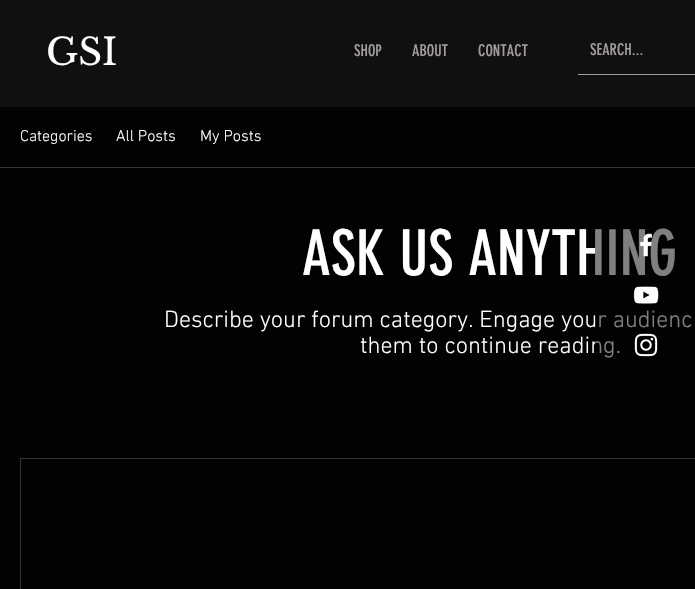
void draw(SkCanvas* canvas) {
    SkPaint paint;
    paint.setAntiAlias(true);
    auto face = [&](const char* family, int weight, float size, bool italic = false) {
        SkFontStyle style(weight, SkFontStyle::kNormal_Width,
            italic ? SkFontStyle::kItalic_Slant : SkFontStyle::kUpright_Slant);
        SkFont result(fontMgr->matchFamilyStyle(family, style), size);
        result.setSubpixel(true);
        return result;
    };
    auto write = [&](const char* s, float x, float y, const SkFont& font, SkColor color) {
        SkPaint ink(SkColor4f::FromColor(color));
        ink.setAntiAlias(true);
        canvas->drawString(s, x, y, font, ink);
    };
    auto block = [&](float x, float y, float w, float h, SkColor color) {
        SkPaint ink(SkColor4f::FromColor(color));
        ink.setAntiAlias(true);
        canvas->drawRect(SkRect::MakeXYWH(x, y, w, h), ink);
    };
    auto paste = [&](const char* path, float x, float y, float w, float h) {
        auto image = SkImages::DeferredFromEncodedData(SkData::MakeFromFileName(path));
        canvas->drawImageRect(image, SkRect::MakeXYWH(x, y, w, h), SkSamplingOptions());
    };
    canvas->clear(SkColorSetRGB(2, 2, 2));
    block(0, 0, 695, 107, SkColorSetRGB(16, 16, 16));
    auto kFont1 = face("Libre Baskerville", 400, 37);
    write("GSI", 46, 65, kFont1, SK_ColorWHITE);
    auto kFont2 = face("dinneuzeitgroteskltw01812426", 400, 16);
    write("SHOP", 354, 56, kFont2, SkColorSetRGB(162, 156, 156));
    write("ABOUT", 412, 56, kFont2, SkColorSetRGB(162, 156, 156));
    write("CONTACT", 478, 56, kFont2, SkColorSetRGB(162, 156, 156));
    block(578, 74, 117, 1, SkColorSetRGB(162, 156, 156));
    write("SEARCH...", 590, 55, kFont2, SkColorSetRGB(162, 156, 156));
    block(0, 167, 695, 1, SkColorSetRGB(53, 53, 53));
    auto kFont3 = face("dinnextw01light", 300, 16);
    write("Categories", 20, 141, kFont3, SK_ColorWHITE);
    write("All Posts", 116, 141, kFont3, SK_ColorWHITE);
    write("My Posts", 200, 141, kFont3, SK_ColorWHITE);
    auto kFont4 = face("dinneuzeitgroteskltw01812426", 400, 62);
    write("ASK US ANYTHING", 302, 275, kFont4, SK_ColorWHITE);
    auto kFont5 = face("dinnextw01light", 300, 24);
    write("Describe your forum category. Engage your audienc", 164, 327, kFont5, SK_ColorWHITE);
    write("them to continue reading.", 360, 353, kFont5, SK_ColorWHITE);
    paint.setStyle(SkPaint::kStroke_Style);
    paint.setStrokeWidth(1);
    paint.setColor(SkColorSetRGB(53, 53, 53));
    canvas->drawRect(SkRect::MakeXYWH(20.5f, 458.5f, 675, 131), paint);
    block(595, 228, 97, 130, SkColorSetARGB(128, 2, 2, 2));
    paste("pic1.png", 640, 233, 13, 24);
    paste("pic2.png", 633, 286, 26, 18);
    paste("pic3.png", 634, 333, 24, 24);
}
